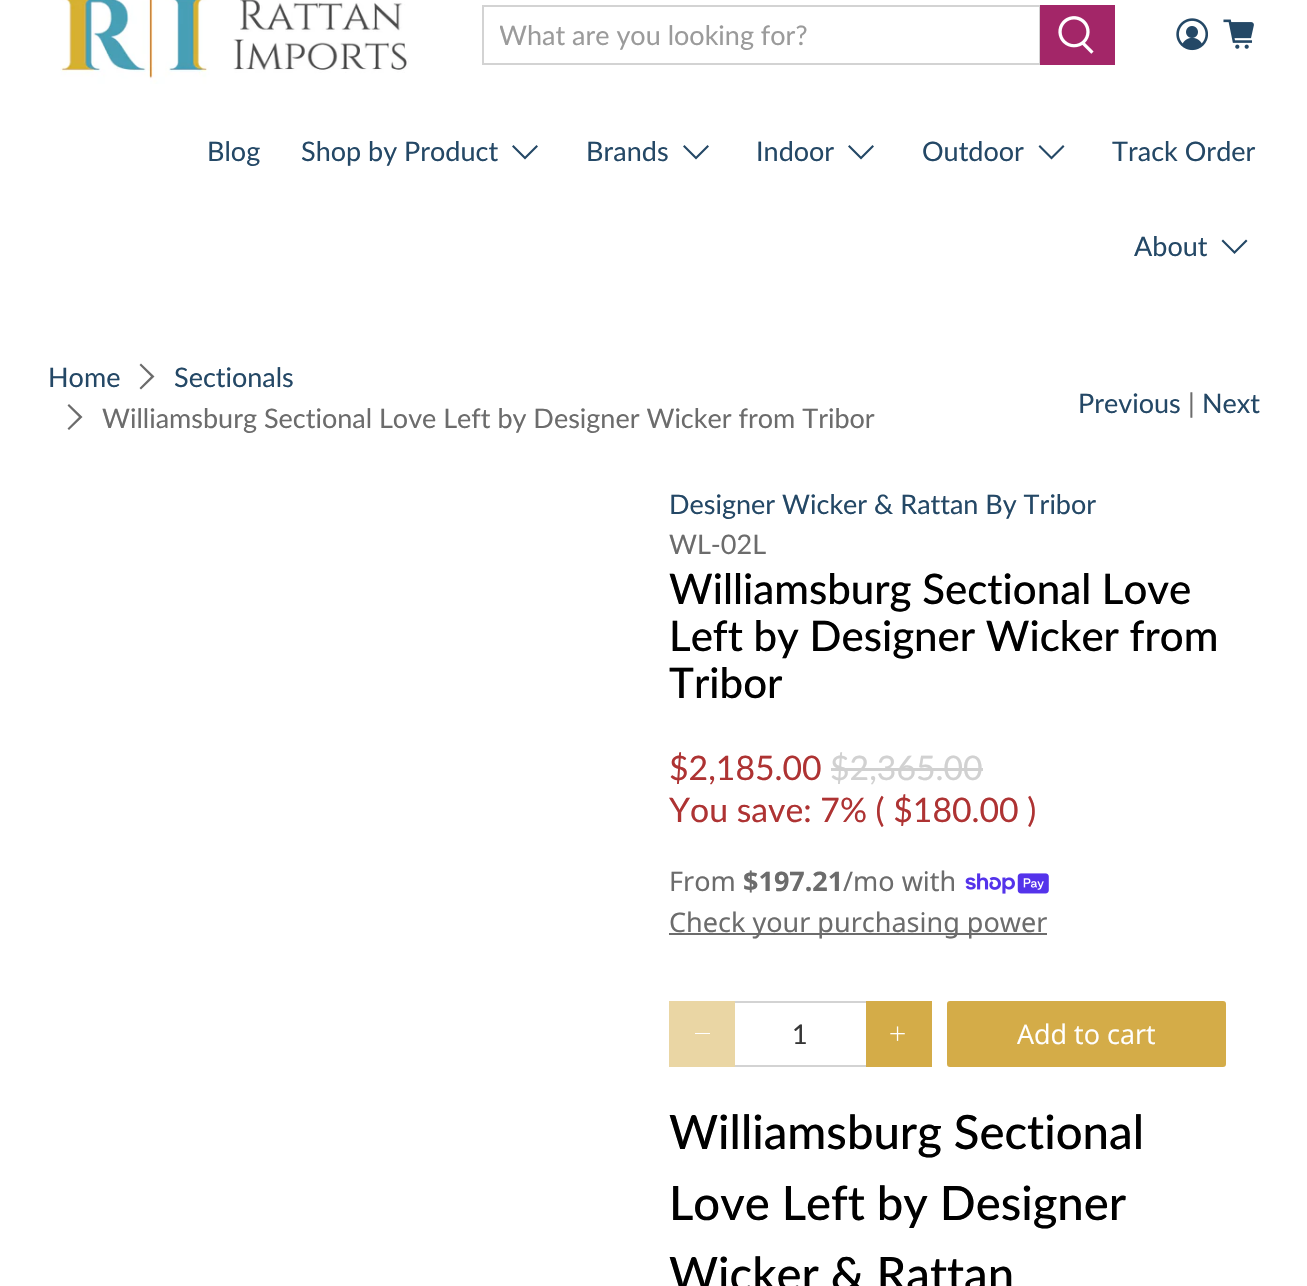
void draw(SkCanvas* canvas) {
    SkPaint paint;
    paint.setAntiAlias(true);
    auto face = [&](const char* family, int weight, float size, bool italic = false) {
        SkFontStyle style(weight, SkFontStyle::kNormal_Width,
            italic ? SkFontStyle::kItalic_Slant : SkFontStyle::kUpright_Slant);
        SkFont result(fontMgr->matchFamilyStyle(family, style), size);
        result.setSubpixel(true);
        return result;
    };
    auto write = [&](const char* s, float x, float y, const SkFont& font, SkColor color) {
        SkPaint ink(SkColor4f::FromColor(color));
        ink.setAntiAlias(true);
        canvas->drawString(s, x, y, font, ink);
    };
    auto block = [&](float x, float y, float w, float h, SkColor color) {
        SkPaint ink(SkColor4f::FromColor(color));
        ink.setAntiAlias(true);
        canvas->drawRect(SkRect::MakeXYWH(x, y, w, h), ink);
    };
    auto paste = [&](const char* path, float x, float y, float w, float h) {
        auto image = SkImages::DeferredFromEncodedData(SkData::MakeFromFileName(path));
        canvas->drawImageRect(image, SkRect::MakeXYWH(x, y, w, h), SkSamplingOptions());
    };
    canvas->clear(SK_ColorWHITE);
    paste("pic1.png", 60, 0, 349, 84);
    paint.setStyle(SkPaint::kStroke_Style);
    paint.setStrokeWidth(2);
    paint.setColor(SkColorSetRGB(211, 211, 211));
    canvas->drawRect(SkRect::MakeXYWH(483, 6, 557, 58), paint);
    canvas->save();
    canvas->clipRect(SkRect::MakeXYWH(500, 18, 525, 33));
    auto kFont1 = face("Lato", 400, 27);
    write("What are you looking for?", 499, 45, kFont1, SkColorSetRGB(155, 155, 155));
    canvas->restore();
    block(1040, 5, 75, 60, SkColorSetRGB(163, 38, 104));
    paste("pic2.png", 1058, 16, 36, 38);
    paste("pic3.png", 1176, 18, 32, 33);
    paste("pic4.png", 1223, 19, 31, 30);
    write("Blog", 207, 161, kFont1, SkColorSetRGB(36, 72, 102));
    write("Shop by Product", 301, 161, kFont1, SkColorSetRGB(36, 72, 102));
    paint.setStyle(SkPaint::kFill_Style);
    paint.setColor(SkColorSetRGB(36, 72, 102));
    canvas->drawPath(SkPathBuilder().moveTo(525, 159.5f).lineTo(512, 146.5f).lineTo(513.5f, 145).lineTo(525, 156.5f).lineTo(536.5f, 145).lineTo(538, 146.5f).close().detach(), paint);
    write("Brands", 586, 161, kFont1, SkColorSetRGB(36, 72, 102));
    canvas->drawPath(SkPathBuilder().moveTo(696, 159.5f).lineTo(683, 146.5f).lineTo(684.5f, 145).lineTo(696, 156.5f).lineTo(707.5f, 145).lineTo(709, 146.5f).close().detach(), paint);
    write("Indoor", 756, 161, kFont1, SkColorSetRGB(36, 72, 102));
    canvas->drawPath(SkPathBuilder().moveTo(861, 159.5f).lineTo(848, 146.5f).lineTo(849.5f, 145).lineTo(861, 156.5f).lineTo(872.5f, 145).lineTo(874, 146.5f).close().detach(), paint);
    write("Outdoor", 922, 161, kFont1, SkColorSetRGB(36, 72, 102));
    canvas->drawPath(SkPathBuilder().moveTo(1051.5f, 159.5f).lineTo(1038.5f, 146.5f).lineTo(1040, 145).lineTo(1051.5f, 156.5f).lineTo(1063, 145).lineTo(1064.5f, 146.5f).close().detach(), paint);
    write("Track Order", 1112, 161, kFont1, SkColorSetRGB(36, 72, 102));
    write("About", 1134, 256, kFont1, SkColorSetRGB(36, 72, 102));
    canvas->drawPath(SkPathBuilder().moveTo(1234.5f, 254).lineTo(1221.5f, 241).lineTo(1223, 239.5f).lineTo(1234.5f, 251).lineTo(1246, 239.5f).lineTo(1247.5f, 241).close().detach(), paint);
    write("Home", 48, 387, kFont1, SkColorSetRGB(36, 72, 102));
    paint.setColor(SkColorSetRGB(108, 108, 108));
    canvas->drawPath(SkPathBuilder().moveTo(141, 389.5f).lineTo(139.5f, 388).lineTo(151, 376.5f).lineTo(139.5f, 365).lineTo(141, 363.5f).lineTo(154.5f, 376.5f).close().detach(), paint);
    write("Sectionals", 174, 387, kFont1, SkColorSetRGB(36, 72, 102));
    canvas->drawPath(SkPathBuilder().moveTo(69, 430).lineTo(67.5f, 428.5f).lineTo(79, 417).lineTo(67.5f, 405.5f).lineTo(69, 404).lineTo(82.5f, 417).close().detach(), paint);
    write("Williamsburg Sectional Love Left by Designer Wicker from Tribor", 102, 428, kFont1, SkColorSetRGB(108, 108, 108));
    write("Previous", 1078, 413, kFont1, SkColorSetRGB(36, 72, 102));
    write("|", 1188, 413, kFont1, SkColorSetRGB(108, 108, 108));
    write("Next", 1202, 413, kFont1, SkColorSetRGB(36, 72, 102));
    write("Designer Wicker & Rattan By Tribor", 669, 514, kFont1, SkColorSetRGB(36, 72, 102));
    write("WL-02L", 669, 554, kFont1, SkColorSetRGB(108, 108, 108));
    auto kFont2 = face("Lato", 500, 42);
    write("Williamsburg Sectional Love", 669, 604, kFont2, SK_ColorBLACK);
    write("Left by Designer Wicker from", 669, 651, kFont2, SK_ColorBLACK);
    write("Tribor", 669, 698, kFont2, SK_ColorBLACK);
    auto kFont3 = face("Lato", 400, 33.75f);
    write("$2,185.00", 669, 780, kFont3, SkColorSetRGB(174, 51, 51));
    write("$2,365.00", 830, 780, kFont3, SkColorSetRGB(209, 209, 209));
    block(831, 768, 152, 3, SkColorSetRGB(209, 209, 209));
    write("You save: 7% ( $180.00 )", 669, 822, kFont3, SkColorSetRGB(174, 51, 51));
    auto kFont4 = face("Noto Sans", 400, 27);
    write("From", 669, 891, kFont4, SkColorSetRGB(108, 108, 108));
    auto kFont5 = face("Noto Sans", 700, 27);
    write("$197.21", 743, 891, kFont5, SkColorSetRGB(108, 108, 108));
    write("/mo with", 843, 891, kFont4, SkColorSetRGB(108, 108, 108));
    paste("pic5.png", 965, 873, 84, 21);
    block(669, 933, 378, 2, SkColorSetRGB(108, 108, 108));
    write("Check your purchasing power", 669, 932, kFont4, SkColorSetRGB(108, 108, 108));
    block(669, 1001, 66, 66, SkColorSetRGB(234, 214, 164));
    block(695, 1033, 15, 1, SK_ColorWHITE);
    block(735, 1001, 131, 2, SkColorSetRGB(211, 211, 211));
    block(735, 1065, 131, 2, SkColorSetRGB(211, 211, 211));
    write("1", 792, 1044, kFont1, SkColorSetRGB(54, 54, 54));
    block(866, 1001, 66, 66, SkColorSetRGB(212, 172, 72));
    paste("pic6.png", 890, 1026, 15, 15);
    paint.setColor(SkColorSetRGB(212, 172, 72));
    canvas->drawRoundRect(SkRect::MakeXYWH(948, 1002, 277, 64), 2, 2, paint);
    paint.setStyle(SkPaint::kStroke_Style);
    canvas->drawRoundRect(SkRect::MakeXYWH(948, 1002, 277, 64), 2, 2, paint);
    auto kFont6 = face("Open Sans", 400, 27);
    write("Add to cart", 1017, 1044, kFont6, SK_ColorWHITE);
    auto kFont7 = face("Lato", 500, 47.25f);
    write("Williamsburg Sectional", 669, 1149, kFont7, SK_ColorBLACK);
    write("Love Left by Designer", 669, 1220, kFont7, SK_ColorBLACK);
    write("Wicker & Rattan", 669, 1291, kFont7, SK_ColorBLACK);
}
